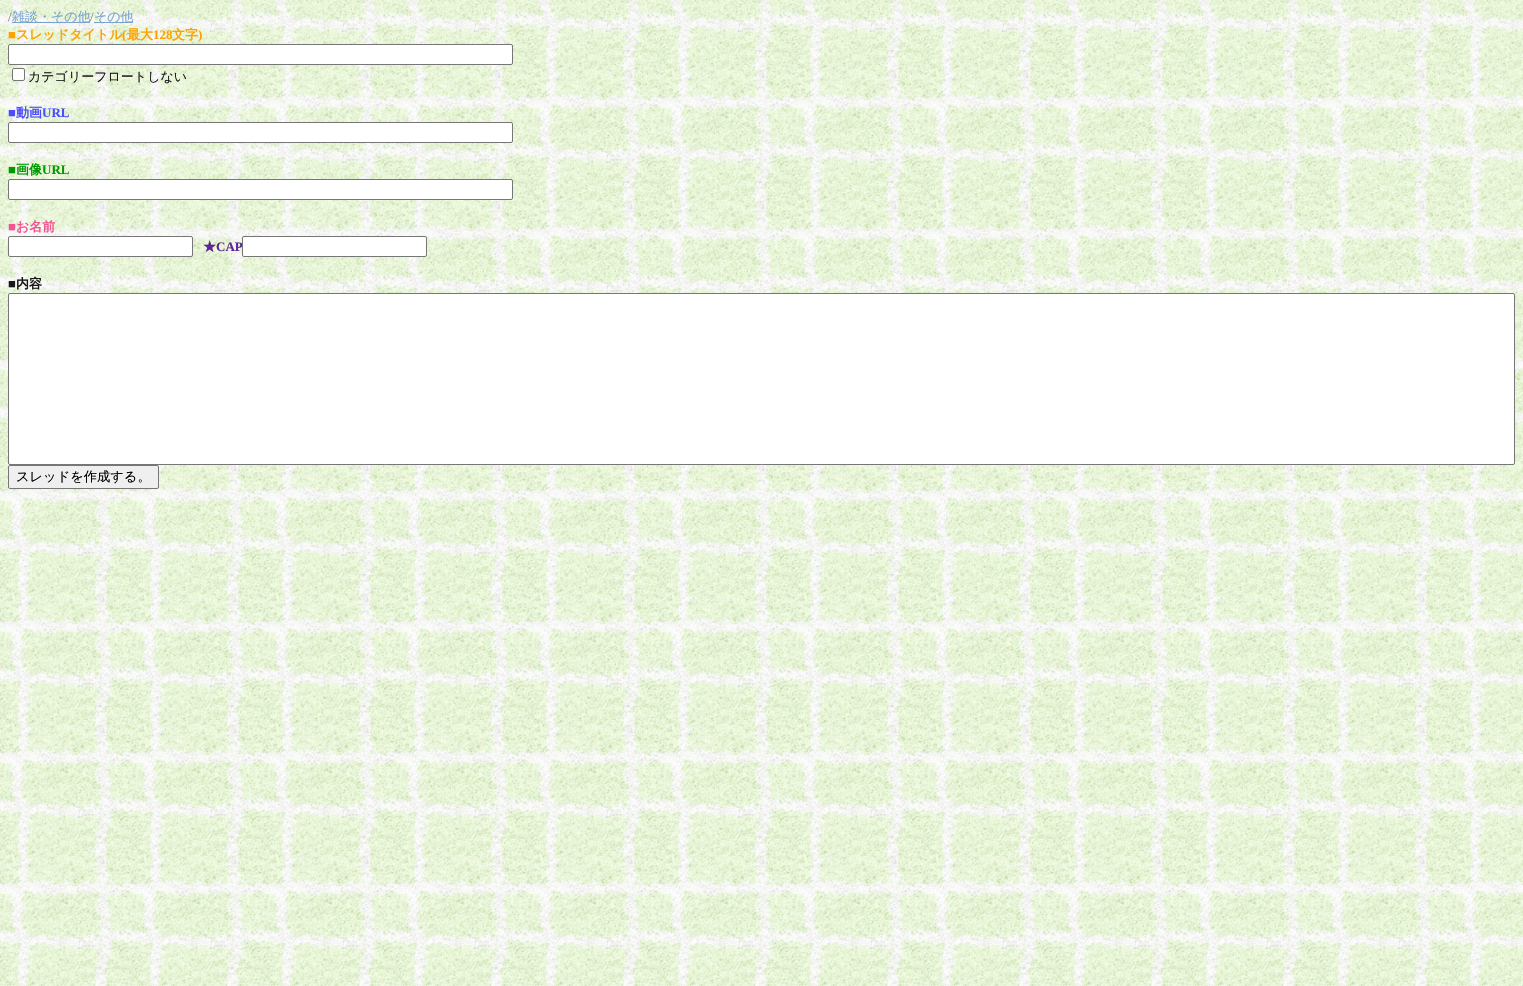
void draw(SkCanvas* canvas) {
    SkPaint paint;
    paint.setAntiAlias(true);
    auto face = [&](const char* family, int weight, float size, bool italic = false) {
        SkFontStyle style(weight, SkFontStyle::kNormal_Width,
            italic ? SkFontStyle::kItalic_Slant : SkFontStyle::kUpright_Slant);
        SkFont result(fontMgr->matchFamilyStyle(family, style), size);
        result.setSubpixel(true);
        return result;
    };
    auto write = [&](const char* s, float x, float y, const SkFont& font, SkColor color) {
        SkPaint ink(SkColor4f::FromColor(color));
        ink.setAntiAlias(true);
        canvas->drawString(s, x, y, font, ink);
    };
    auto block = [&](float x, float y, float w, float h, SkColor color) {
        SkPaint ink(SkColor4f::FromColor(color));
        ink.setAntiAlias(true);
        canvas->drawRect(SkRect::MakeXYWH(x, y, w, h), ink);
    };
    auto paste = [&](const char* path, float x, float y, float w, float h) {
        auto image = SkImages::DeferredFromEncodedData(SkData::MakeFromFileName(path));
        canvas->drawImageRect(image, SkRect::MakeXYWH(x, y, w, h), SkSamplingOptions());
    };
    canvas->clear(SK_ColorWHITE);
    paste("pic1.png", 0, 0, 1523, 986);
    auto kFont1 = face("Liberation Serif", 400, 13);
    write("/", 8, 21, kFont1, SkColorSetRGB(128, 128, 128));
    block(12, 22, 78, 1, SkColorSetRGB(122, 163, 204));
    auto kFont2 = face("WenQuanYi Zen Hei", 500, 13);
    write("雑談・その他", 12, 21, kFont2, SkColorSetRGB(122, 163, 204));
    write("/", 90, 21, kFont1, SkColorSetRGB(128, 128, 128));
    block(94, 22, 39, 1, SkColorSetRGB(122, 163, 204));
    write("その他", 94, 21, kFont2, SkColorSetRGB(122, 163, 204));
    auto kFont3 = face("Liberation Serif", 700, 13);
    write("■", 8, 39, kFont3, SkColorSetRGB(255, 161, 3));
    auto kFont4 = face("WenQuanYi Zen Hei", 700, 13);
    write("スレッドタイトル", 16, 39, kFont4, SkColorSetRGB(255, 161, 3));
    write("(", 122, 39, kFont3, SkColorSetRGB(255, 161, 3));
    write("最大", 127, 39, kFont4, SkColorSetRGB(255, 161, 3));
    write("128", 153, 39, kFont3, SkColorSetRGB(255, 161, 3));
    write("文字", 172, 39, kFont4, SkColorSetRGB(255, 161, 3));
    write(")", 198, 39, kFont3, SkColorSetRGB(255, 161, 3));
    paint.setColor(SK_ColorWHITE);
    canvas->drawRoundRect(SkRect::MakeXYWH(8.5f, 44.5f, 504, 20), 1.5f, 1.5f, paint);
    paint.setStyle(SkPaint::kStroke_Style);
    paint.setStrokeWidth(1);
    paint.setColor(SkColorSetRGB(118, 118, 118));
    canvas->drawRoundRect(SkRect::MakeXYWH(8.5f, 44.5f, 504, 20), 1.5f, 1.5f, paint);
    paint.setStyle(SkPaint::kFill_Style);
    paint.setColor(SK_ColorWHITE);
    canvas->drawRoundRect(SkRect::MakeXYWH(12.5f, 68.5f, 12, 12), 1.5f, 1.5f, paint);
    paint.setStyle(SkPaint::kStroke_Style);
    paint.setColor(SkColorSetRGB(118, 118, 118));
    canvas->drawRoundRect(SkRect::MakeXYWH(12.5f, 68.5f, 12, 12), 1.5f, 1.5f, paint);
    write("カテゴリーフロートしない", 28, 81, kFont2, SkColorSetRGB(25, 24, 23));
    write("■", 8, 117, kFont3, SkColorSetRGB(76, 76, 255));
    write("動画", 16, 117, kFont4, SkColorSetRGB(76, 76, 255));
    write("URL", 42, 117, kFont3, SkColorSetRGB(76, 76, 255));
    paint.setStyle(SkPaint::kFill_Style);
    paint.setColor(SK_ColorWHITE);
    canvas->drawRoundRect(SkRect::MakeXYWH(8.5f, 122.5f, 504, 20), 1.5f, 1.5f, paint);
    paint.setStyle(SkPaint::kStroke_Style);
    paint.setColor(SkColorSetRGB(118, 118, 118));
    canvas->drawRoundRect(SkRect::MakeXYWH(8.5f, 122.5f, 504, 20), 1.5f, 1.5f, paint);
    write("■", 8, 174, kFont3, SkColorSetRGB(0, 153, 0));
    write("画像", 16, 174, kFont4, SkColorSetRGB(0, 153, 0));
    write("URL", 42, 174, kFont3, SkColorSetRGB(0, 153, 0));
    paint.setStyle(SkPaint::kFill_Style);
    paint.setColor(SK_ColorWHITE);
    canvas->drawRoundRect(SkRect::MakeXYWH(8.5f, 179.5f, 504, 20), 1.5f, 1.5f, paint);
    paint.setStyle(SkPaint::kStroke_Style);
    paint.setColor(SkColorSetRGB(118, 118, 118));
    canvas->drawRoundRect(SkRect::MakeXYWH(8.5f, 179.5f, 504, 20), 1.5f, 1.5f, paint);
    write("■", 8, 231, kFont3, SkColorSetRGB(240, 84, 145));
    write("お名前", 16, 231, kFont4, SkColorSetRGB(240, 84, 145));
    paint.setStyle(SkPaint::kFill_Style);
    paint.setColor(SK_ColorWHITE);
    canvas->drawRoundRect(SkRect::MakeXYWH(8.5f, 236.5f, 184, 20), 1.5f, 1.5f, paint);
    paint.setStyle(SkPaint::kStroke_Style);
    paint.setColor(SkColorSetRGB(118, 118, 118));
    canvas->drawRoundRect(SkRect::MakeXYWH(8.5f, 236.5f, 184, 20), 1.5f, 1.5f, paint);
    write("★", 203, 251, kFont4, SkColorSetRGB(95, 37, 150));
    write("CAP", 216, 251, kFont3, SkColorSetRGB(95, 37, 150));
    paint.setStyle(SkPaint::kFill_Style);
    paint.setColor(SK_ColorWHITE);
    canvas->drawRoundRect(SkRect::MakeXYWH(242.5f, 236.5f, 184, 20), 1.5f, 1.5f, paint);
    paint.setStyle(SkPaint::kStroke_Style);
    paint.setColor(SkColorSetRGB(118, 118, 118));
    canvas->drawRoundRect(SkRect::MakeXYWH(242.5f, 236.5f, 184, 20), 1.5f, 1.5f, paint);
    write("■", 8, 288, kFont3, SkColorSetRGB(25, 24, 23));
    write("内容", 16, 288, kFont4, SkColorSetRGB(25, 24, 23));
    paint.setStyle(SkPaint::kFill_Style);
    paint.setColor(SK_ColorWHITE);
    canvas->drawRoundRect(SkRect::MakeXYWH(8.5f, 293.5f, 1506, 171), 1.5f, 1.5f, paint);
    paint.setStyle(SkPaint::kStroke_Style);
    paint.setColor(SkColorSetRGB(118, 118, 118));
    canvas->drawRoundRect(SkRect::MakeXYWH(8.5f, 293.5f, 1506, 171), 1.5f, 1.5f, paint);
    paint.setStyle(SkPaint::kFill_Style);
    paint.setColor(SkColorSetRGB(239, 239, 239));
    canvas->drawRoundRect(SkRect::MakeXYWH(8.5f, 465.5f, 150, 23), 1.5f, 1.5f, paint);
    paint.setStyle(SkPaint::kStroke_Style);
    paint.setColor(SkColorSetRGB(118, 118, 118));
    canvas->drawRoundRect(SkRect::MakeXYWH(8.5f, 465.5f, 150, 23), 1.5f, 1.5f, paint);
    auto kFont5 = face("WenQuanYi Zen Hei", 500, 13.25f);
    write("スレッドを作成する。", 16, 481, kFont5, SK_ColorBLACK);
}
